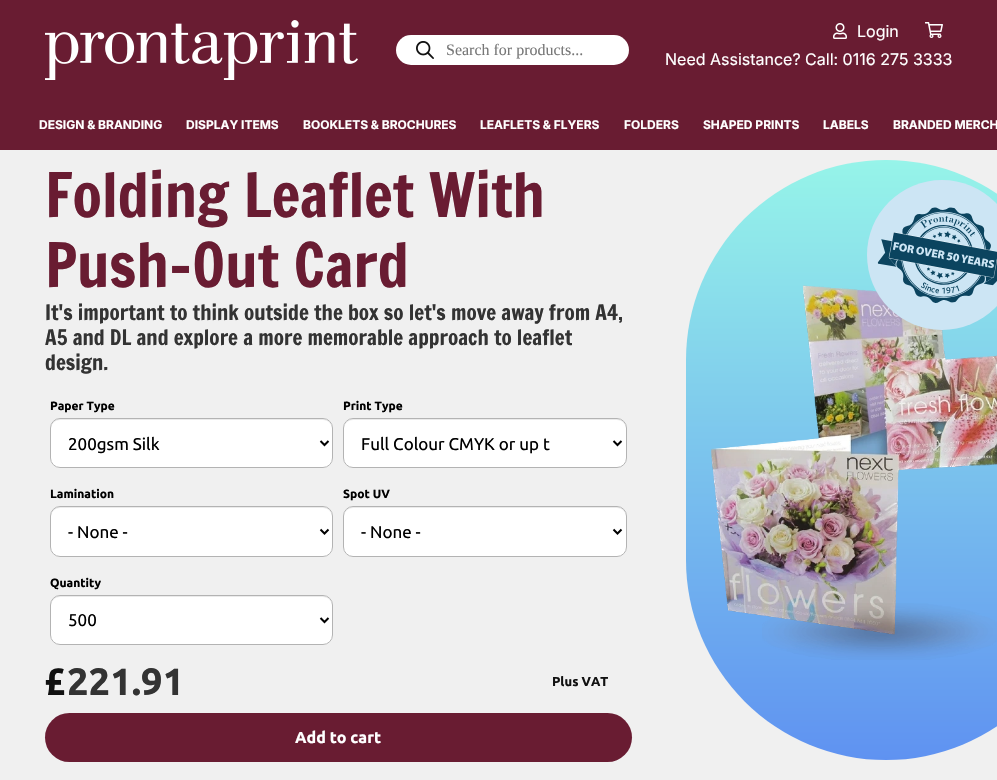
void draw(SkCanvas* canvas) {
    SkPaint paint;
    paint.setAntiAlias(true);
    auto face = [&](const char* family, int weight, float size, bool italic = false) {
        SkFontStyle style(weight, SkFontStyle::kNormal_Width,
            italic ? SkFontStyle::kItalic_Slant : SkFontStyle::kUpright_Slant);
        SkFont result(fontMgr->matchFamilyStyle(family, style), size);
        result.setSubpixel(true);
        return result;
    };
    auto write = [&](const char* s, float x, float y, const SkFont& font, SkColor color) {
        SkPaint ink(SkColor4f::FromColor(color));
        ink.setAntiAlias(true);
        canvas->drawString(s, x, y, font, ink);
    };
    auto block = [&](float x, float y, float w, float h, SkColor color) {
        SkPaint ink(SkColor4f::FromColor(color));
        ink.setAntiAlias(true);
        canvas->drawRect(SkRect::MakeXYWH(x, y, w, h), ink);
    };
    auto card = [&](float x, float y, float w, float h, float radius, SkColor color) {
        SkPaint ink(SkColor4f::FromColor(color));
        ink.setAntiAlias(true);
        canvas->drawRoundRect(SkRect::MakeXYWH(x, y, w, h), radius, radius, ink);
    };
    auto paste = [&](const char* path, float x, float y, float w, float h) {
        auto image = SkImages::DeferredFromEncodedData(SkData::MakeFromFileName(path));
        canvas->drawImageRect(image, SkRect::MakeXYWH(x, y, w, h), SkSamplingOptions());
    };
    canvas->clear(SkColorSetRGB(240, 240, 240));
    block(0, 0, 997, 150, SkColorSetRGB(105, 28, 50));
    paste("pic1.png", 45, 20, 313, 60);
    card(396, 35, 233, 30, 15, SK_ColorWHITE);
    paste("pic2.png", 416, 41, 18, 18);
    auto kFont1 = face("Liberation Serif", 400, 16);
    write("Search for products...", 446, 55, kFont1, SkColorSetRGB(119, 119, 119));
    paste("pic3.png", 833, 23, 14, 16);
    auto kFont2 = face("Inter", 400, 16);
    write("Login", 857, 37, kFont2, SK_ColorWHITE);
    paste("pic4.png", 925, 22, 18, 16);
    write("Need Assistance? Call: 0116 275 3333", 665, 65, kFont2, SK_ColorWHITE);
    auto kFont3 = face("Inter", 700, 12);
    write("DESIGN & BRANDING", 39, 129, kFont3, SK_ColorWHITE);
    write("DISPLAY ITEMS", 186, 129, kFont3, SK_ColorWHITE);
    write("BOOKLETS & BROCHURES", 303, 129, kFont3, SK_ColorWHITE);
    write("LEAFLETS & FLYERS", 480, 129, kFont3, SK_ColorWHITE);
    write("FOLDERS", 624, 129, kFont3, SK_ColorWHITE);
    write("SHAPED PRINTS", 703, 129, kFont3, SK_ColorWHITE);
    write("LABELS", 823, 129, kFont3, SK_ColorWHITE);
    write("BRANDED MERCH", 893, 129, kFont3, SK_ColorWHITE);
    auto kFont4 = face("Francois One", 400, 60);
    write("Folding Leaflet With", 45, 217, kFont4, SkColorSetRGB(105, 28, 50));
    write("Push-Out Card", 45, 287, kFont4, SkColorSetRGB(105, 28, 50));
    auto kFont5 = face("Francois One", 400, 21);
    write("It's important to think outside the box so let's move away from A4,", 45, 320, kFont5, SkColorSetRGB(51, 51, 51));
    write("A5 and DL and explore a more memorable approach to leaflet", 45, 345, kFont5, SkColorSetRGB(51, 51, 51));
    write("design.", 45, 370, kFont5, SkColorSetRGB(51, 51, 51));
    auto kFont6 = face("Ubuntu", 700, 12);
    write("Paper Type", 50, 410, kFont6, SK_ColorBLACK);
    card(50, 418, 283, 50, 10, SK_ColorWHITE);
    paint.setColor(SkColorSetRGB(235, 235, 235));
    canvas->drawPath(SkPathBuilder().moveTo(60, 420).lineTo(323, 420).cubicTo(328, 420, 332, 424, 332, 429).cubicTo(332, 424, 329, 419, 323, 419).lineTo(58, 419).cubicTo(53, 420, 51, 424, 51, 429).cubicTo(51, 424, 55, 420, 60, 420).close().detach(), paint);
    paint.setStyle(SkPaint::kStroke_Style);
    paint.setStrokeWidth(1);
    paint.setColor(SkColorSetRGB(179, 179, 179));
    canvas->drawRoundRect(SkRect::MakeXYWH(50.5f, 418.5f, 282, 49), 9.5f, 9.5f, paint);
    paint.setStrokeWidth(2);
    paint.setColor(SK_ColorBLACK);
    canvas->drawPath(SkPathBuilder().moveTo(320.5f, 441).lineTo(324.5f, 445).lineTo(328.5f, 441).detach(), paint);
    auto kFont7 = face("Ubuntu", 400, 17);
    write("200gsm Silk", 68, 450, kFont7, SK_ColorBLACK);
    write("Print Type", 343, 410, kFont6, SK_ColorBLACK);
    card(343, 418, 284, 50, 10, SK_ColorWHITE);
    paint.setStyle(SkPaint::kFill_Style);
    paint.setColor(SkColorSetRGB(235, 235, 235));
    canvas->drawPath(SkPathBuilder().moveTo(353, 420).lineTo(617, 420).cubicTo(622, 420, 626, 424, 626, 429).cubicTo(626, 424, 624, 420, 619, 419).lineTo(353, 419).cubicTo(347, 419, 344, 424, 344, 429).cubicTo(344, 424, 348, 420, 353, 420).close().detach(), paint);
    paint.setStyle(SkPaint::kStroke_Style);
    paint.setStrokeWidth(1);
    paint.setColor(SkColorSetRGB(179, 179, 179));
    canvas->drawRoundRect(SkRect::MakeXYWH(343.5f, 418.5f, 283, 49), 9.5f, 9.5f, paint);
    paint.setStrokeWidth(2);
    paint.setColor(SK_ColorBLACK);
    canvas->drawPath(SkPathBuilder().moveTo(613.5f, 441).lineTo(617.5f, 445).lineTo(621.5f, 441).detach(), paint);
    write("Full Colour CMYK or up t", 361, 450, kFont7, SK_ColorBLACK);
    write("Lamination", 50, 498, kFont6, SK_ColorBLACK);
    card(50, 506, 283, 51, 10, SK_ColorWHITE);
    paint.setStyle(SkPaint::kFill_Style);
    paint.setColor(SkColorSetRGB(235, 235, 235));
    canvas->drawPath(SkPathBuilder().moveTo(60, 508).lineTo(323, 508).cubicTo(328, 508, 332, 512, 332, 517).cubicTo(332, 512, 329, 507, 323, 507).lineTo(58, 507).cubicTo(53, 508, 51, 512, 51, 517).cubicTo(51, 512, 55, 508, 60, 508).close().detach(), paint);
    paint.setStyle(SkPaint::kStroke_Style);
    paint.setStrokeWidth(1);
    paint.setColor(SkColorSetRGB(179, 179, 179));
    canvas->drawRoundRect(SkRect::MakeXYWH(50.5f, 506.5f, 282, 50), 9.5f, 9.5f, paint);
    paint.setStrokeWidth(2);
    paint.setColor(SK_ColorBLACK);
    canvas->drawPath(SkPathBuilder().moveTo(320.5f, 529.5f).lineTo(324.5f, 533.5f).lineTo(328.5f, 529.5f).detach(), paint);
    write("- None -", 68, 538, kFont7, SK_ColorBLACK);
    write("Spot UV", 343, 498, kFont6, SK_ColorBLACK);
    card(343, 506, 284, 51, 10, SK_ColorWHITE);
    paint.setStyle(SkPaint::kFill_Style);
    paint.setColor(SkColorSetRGB(235, 235, 235));
    canvas->drawPath(SkPathBuilder().moveTo(353, 508).lineTo(617, 508).cubicTo(622, 508, 626, 512, 626, 517).cubicTo(626, 512, 624, 508, 619, 507).lineTo(353, 507).cubicTo(347, 507, 344, 512, 344, 517).cubicTo(344, 512, 348, 508, 353, 508).close().detach(), paint);
    paint.setStyle(SkPaint::kStroke_Style);
    paint.setStrokeWidth(1);
    paint.setColor(SkColorSetRGB(179, 179, 179));
    canvas->drawRoundRect(SkRect::MakeXYWH(343.5f, 506.5f, 283, 50), 9.5f, 9.5f, paint);
    paint.setStrokeWidth(2);
    paint.setColor(SK_ColorBLACK);
    canvas->drawPath(SkPathBuilder().moveTo(613.5f, 529.5f).lineTo(617.5f, 533.5f).lineTo(621.5f, 529.5f).detach(), paint);
    write("- None -", 361, 538, kFont7, SK_ColorBLACK);
    write("Quantity", 50, 587, kFont6, SK_ColorBLACK);
    card(50, 595, 283, 50, 10, SK_ColorWHITE);
    paint.setStyle(SkPaint::kFill_Style);
    paint.setColor(SkColorSetRGB(235, 235, 235));
    canvas->drawPath(SkPathBuilder().moveTo(60, 597).lineTo(323, 597).cubicTo(328, 597, 332, 601, 332, 606).cubicTo(332, 601, 329, 596, 323, 596).lineTo(58, 596).cubicTo(53, 597, 51, 601, 51, 606).cubicTo(51, 601, 55, 597, 60, 597).close().detach(), paint);
    paint.setStyle(SkPaint::kStroke_Style);
    paint.setStrokeWidth(1);
    paint.setColor(SkColorSetRGB(179, 179, 179));
    canvas->drawRoundRect(SkRect::MakeXYWH(50.5f, 595.5f, 282, 49), 9.5f, 9.5f, paint);
    paint.setStrokeWidth(2);
    paint.setColor(SK_ColorBLACK);
    canvas->drawPath(SkPathBuilder().moveTo(320.5f, 618).lineTo(324.5f, 622).lineTo(328.5f, 618).detach(), paint);
    write("500", 68, 626, kFont7, SK_ColorBLACK);
    auto kFont8 = face("Ubuntu", 700, 38);
    write("£", 45, 695, kFont8, SkColorSetRGB(17, 17, 17));
    write("221.91", 67, 695, kFont8, SkColorSetRGB(51, 51, 51));
    auto kFont9 = face("Ubuntu", 700, 13);
    write("Plus VAT", 552, 686, kFont9, SkColorSetRGB(17, 17, 17));
    card(45, 713, 587, 49, 24.5f, SkColorSetRGB(105, 28, 50));
    auto kFont10 = face("Ubuntu", 700, 16);
    write("Add to cart", 295, 743, kFont10, SK_ColorWHITE);
    paint.setStyle(SkPaint::kFill_Style);
    {
        const SkColor colors[] = {SkColorSetRGB(150, 244, 233), SkColorSetRGB(95, 146, 241)};
        const float stops[] = {0, 1};
        const SkPoint ends[] = {{886, 160}, {886, 760}};
        paint.setShader(SkGradientShader::MakeLinear(ends, colors, stops, 2, SkTileMode::kClamp));
        paint.setAlpha(255);
    }
    canvas->drawRoundRect(SkRect::MakeXYWH(686, 160, 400, 600), 200, 200, paint);
    paste("pic5.png", 711, 285, 286, 350);
    paste("pic6.png", 762, 603, 235, 57);
    paint.setShader(nullptr);
    paint.setColor(SkColorSetRGB(204, 229, 244));
    canvas->drawCircle(942, 255, 75, paint);
    paste("pic7.png", 877, 207, 120, 96);
}
